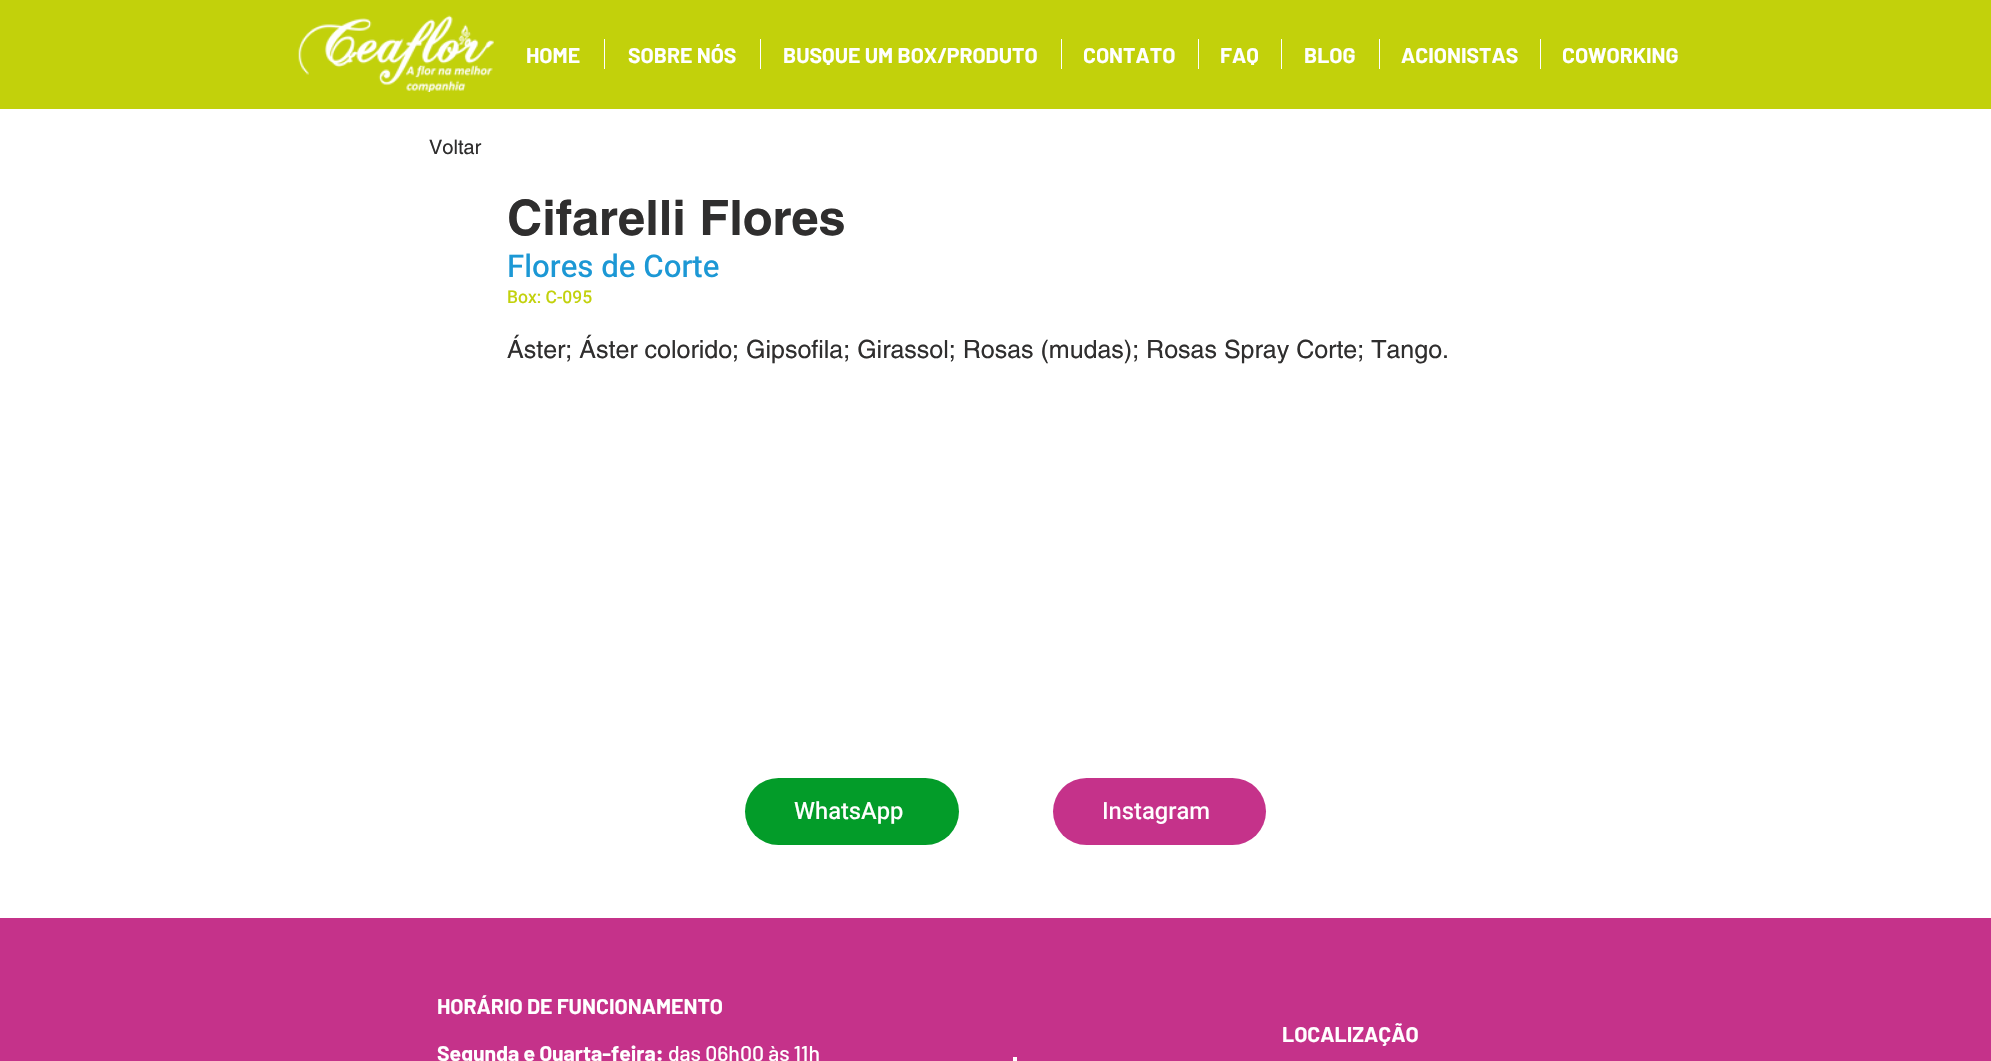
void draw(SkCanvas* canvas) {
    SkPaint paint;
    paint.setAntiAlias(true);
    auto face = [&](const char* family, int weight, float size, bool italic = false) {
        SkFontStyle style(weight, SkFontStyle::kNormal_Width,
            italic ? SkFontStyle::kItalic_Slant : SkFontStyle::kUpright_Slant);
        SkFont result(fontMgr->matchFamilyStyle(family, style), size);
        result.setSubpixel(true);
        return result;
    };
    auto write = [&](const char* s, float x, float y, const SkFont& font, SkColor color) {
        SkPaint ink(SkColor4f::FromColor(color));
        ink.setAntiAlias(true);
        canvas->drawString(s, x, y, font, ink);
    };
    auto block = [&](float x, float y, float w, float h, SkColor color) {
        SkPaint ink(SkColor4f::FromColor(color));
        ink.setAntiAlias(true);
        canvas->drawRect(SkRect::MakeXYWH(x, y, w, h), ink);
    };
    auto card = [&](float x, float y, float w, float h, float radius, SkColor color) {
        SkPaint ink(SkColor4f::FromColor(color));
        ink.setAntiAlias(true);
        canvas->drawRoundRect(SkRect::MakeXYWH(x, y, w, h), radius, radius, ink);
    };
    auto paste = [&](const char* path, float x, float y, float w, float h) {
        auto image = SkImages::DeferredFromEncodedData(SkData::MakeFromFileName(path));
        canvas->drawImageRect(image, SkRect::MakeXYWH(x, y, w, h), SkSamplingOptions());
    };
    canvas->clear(SK_ColorWHITE);
    block(0, 0, 1991, 109, SkColorSetRGB(194, 209, 11));
    paste("pic1.png", 298, 15, 196, 77);
    auto kFont1 = face("Barlow", 700, 21.25f);
    write("HOME", 526, 63, kFont1, SK_ColorWHITE);
    block(604, 39, 1, 30, SK_ColorWHITE);
    write("SOBRE NÓS", 628, 63, kFont1, SK_ColorWHITE);
    block(760, 39, 1, 30, SK_ColorWHITE);
    write("BUSQUE UM BOX/PRODUTO", 783, 63, kFont1, SK_ColorWHITE);
    block(1061, 39, 1, 30, SK_ColorWHITE);
    write("CONTATO", 1083, 63, kFont1, SK_ColorWHITE);
    block(1198, 39, 1, 30, SK_ColorWHITE);
    write("FAQ", 1220, 63, kFont1, SK_ColorWHITE);
    block(1281, 39, 1, 30, SK_ColorWHITE);
    write("BLOG", 1304, 63, kFont1, SK_ColorWHITE);
    block(1379, 39, 1, 30, SK_ColorWHITE);
    write("ACIONISTAS", 1401, 63, kFont1, SK_ColorWHITE);
    block(1540, 39, 1, 30, SK_ColorWHITE);
    write("COWORKING", 1562, 63, kFont1, SK_ColorWHITE);
    auto kFont2 = face("helvetica", 400, 20);
    write("Voltar", 429, 154, kFont2, SkColorSetRGB(47, 46, 46));
    auto kFont3 = face("helvetica", 700, 48.75f);
    write("Cifarelli Flores", 507, 235, kFont3, SkColorSetRGB(47, 46, 46));
    auto kFont4 = face("Heebo", 500, 31.25f);
    write("Flores de Corte", 507, 277, kFont4, SkColorSetRGB(28, 152, 213));
    auto kFont5 = face("Heebo", 500, 17.5f);
    write("Box: C-095", 507, 303, kFont5, SkColorSetRGB(194, 209, 11));
    auto kFont6 = face("helvetica", 400, 25);
    write("Áster; Áster colorido; Gipsofila; Girassol; Rosas (mudas); Rosas Spray Corte; Tango.", 507, 358, kFont6, SkColorSetRGB(47, 46, 46));
    card(745, 778, 214, 67, 33.5f, SkColorSetRGB(3, 156, 41));
    auto kFont7 = face("Heebo", 500, 23.75f);
    write("WhatsApp", 794, 819, kFont7, SK_ColorWHITE);
    card(1053, 778, 213, 67, 33.5f, SkColorSetRGB(197, 50, 138));
    write("Instagram", 1102, 819, kFont7, SK_ColorWHITE);
    block(0, 918, 1991, 143, SkColorSetRGB(197, 50, 138));
    write("HORÁRIO DE FUNCIONAMENTO", 437, 1014, kFont1, SK_ColorWHITE);
    write("LOCALIZAÇÃO", 1282, 1042, kFont1, SK_ColorWHITE);
    write("Segunda e Quarta-feira:", 437, 1061, kFont1, SK_ColorWHITE);
    auto kFont8 = face("Barlow", 500, 21.25f);
    write("das 06h00 às 11h", 668, 1061, kFont8, SK_ColorWHITE);
    block(1013, 1057, 4, 4, SK_ColorWHITE);
}
